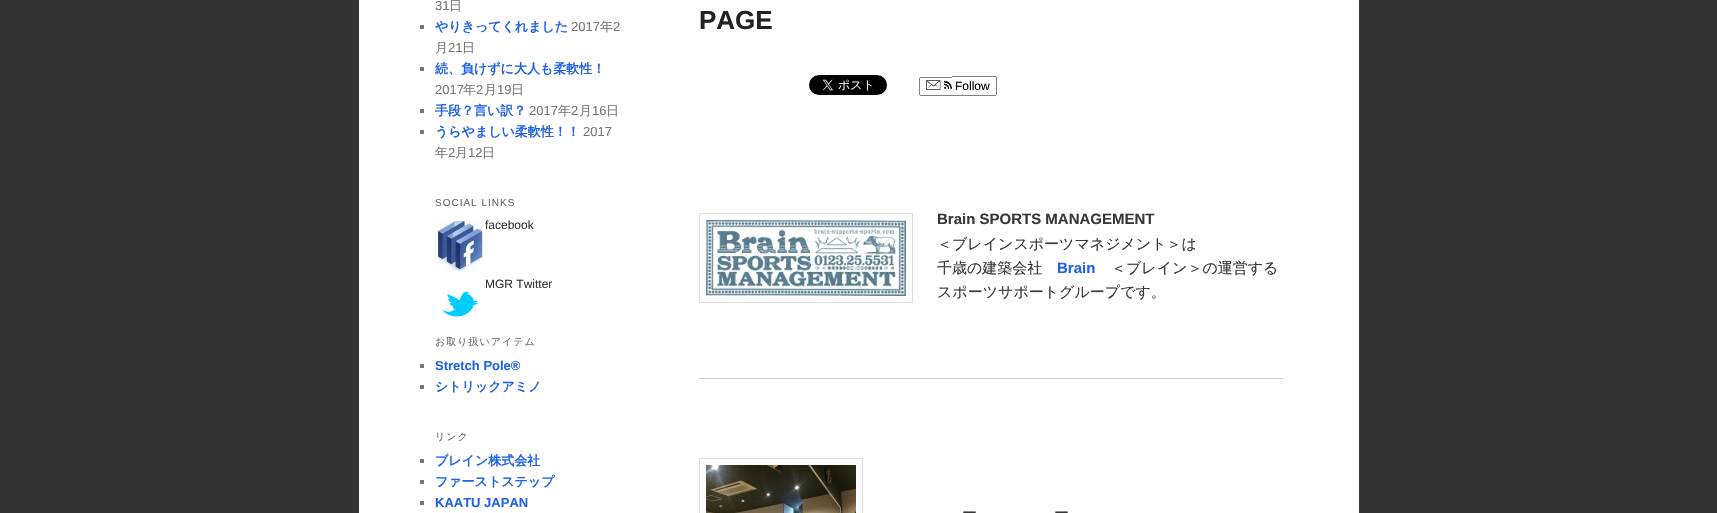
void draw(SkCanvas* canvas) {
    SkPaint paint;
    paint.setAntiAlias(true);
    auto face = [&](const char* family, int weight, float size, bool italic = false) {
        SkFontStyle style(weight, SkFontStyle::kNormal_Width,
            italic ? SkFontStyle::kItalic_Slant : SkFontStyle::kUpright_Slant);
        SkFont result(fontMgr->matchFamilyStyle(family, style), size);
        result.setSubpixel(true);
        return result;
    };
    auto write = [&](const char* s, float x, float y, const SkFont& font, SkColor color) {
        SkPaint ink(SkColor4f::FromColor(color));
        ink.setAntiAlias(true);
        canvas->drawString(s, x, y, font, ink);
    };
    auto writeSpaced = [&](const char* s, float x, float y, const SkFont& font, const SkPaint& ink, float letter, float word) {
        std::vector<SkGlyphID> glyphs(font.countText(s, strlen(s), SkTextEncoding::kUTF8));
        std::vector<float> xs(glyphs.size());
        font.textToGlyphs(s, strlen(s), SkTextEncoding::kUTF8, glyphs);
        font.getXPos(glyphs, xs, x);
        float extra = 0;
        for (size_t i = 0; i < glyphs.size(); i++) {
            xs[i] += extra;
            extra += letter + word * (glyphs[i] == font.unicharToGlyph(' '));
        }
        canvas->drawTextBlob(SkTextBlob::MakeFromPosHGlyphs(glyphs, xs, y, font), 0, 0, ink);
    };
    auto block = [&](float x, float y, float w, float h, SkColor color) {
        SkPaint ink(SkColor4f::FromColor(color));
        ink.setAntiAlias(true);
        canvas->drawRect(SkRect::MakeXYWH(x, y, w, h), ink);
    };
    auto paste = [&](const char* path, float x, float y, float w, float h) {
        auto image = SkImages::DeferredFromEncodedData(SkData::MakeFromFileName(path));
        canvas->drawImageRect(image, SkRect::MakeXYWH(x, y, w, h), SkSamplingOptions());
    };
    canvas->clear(SkColorSetRGB(51, 51, 51));
    block(359, 0, 1000, 513, SK_ColorWHITE);
    auto kFont1 = face("Liberation Sans", 400, 13);
    write("31", 435, 10, kFont1, SkColorSetRGB(119, 119, 119));
    auto kFont2 = face("WenQuanYi Zen Hei", 500, 13);
    write("日", 449, 10, kFont2, SkColorSetRGB(119, 119, 119));
    block(420, 25, 4, 4, SkColorSetRGB(119, 119, 119));
    auto kFont3 = face("WenQuanYi Zen Hei", 700, 13);
    write("やりきってくれました", 435, 31, kFont3, SkColorSetRGB(31, 99, 228));
    write("2017", 571, 31, kFont1, SkColorSetRGB(119, 119, 119));
    write("年", 600, 31, kFont2, SkColorSetRGB(119, 119, 119));
    write("2", 613, 31, kFont1, SkColorSetRGB(119, 119, 119));
    write("月", 435, 52, kFont2, SkColorSetRGB(119, 119, 119));
    write("21", 448, 52, kFont1, SkColorSetRGB(119, 119, 119));
    write("日", 462, 52, kFont2, SkColorSetRGB(119, 119, 119));
    block(420, 67, 4, 4, SkColorSetRGB(119, 119, 119));
    write("続、負けずに大人も柔軟性！", 435, 73, kFont3, SkColorSetRGB(31, 99, 228));
    write("2017", 435, 94, kFont1, SkColorSetRGB(119, 119, 119));
    write("年", 463, 94, kFont2, SkColorSetRGB(119, 119, 119));
    write("2", 476, 94, kFont1, SkColorSetRGB(119, 119, 119));
    write("月", 484, 94, kFont2, SkColorSetRGB(119, 119, 119));
    write("19", 497, 94, kFont1, SkColorSetRGB(119, 119, 119));
    write("日", 511, 94, kFont2, SkColorSetRGB(119, 119, 119));
    block(420, 109, 4, 4, SkColorSetRGB(119, 119, 119));
    write("手段？言い訳？", 435, 115, kFont3, SkColorSetRGB(31, 99, 228));
    write("2017", 529, 115, kFont1, SkColorSetRGB(119, 119, 119));
    write("年", 558, 115, kFont2, SkColorSetRGB(119, 119, 119));
    write("2", 571, 115, kFont1, SkColorSetRGB(119, 119, 119));
    write("月", 579, 115, kFont2, SkColorSetRGB(119, 119, 119));
    write("16", 592, 115, kFont1, SkColorSetRGB(119, 119, 119));
    write("日", 606, 115, kFont2, SkColorSetRGB(119, 119, 119));
    block(420, 130, 4, 4, SkColorSetRGB(119, 119, 119));
    write("うらやましい柔軟性！！", 435, 136, kFont3, SkColorSetRGB(31, 99, 228));
    write("2017", 583, 136, kFont1, SkColorSetRGB(119, 119, 119));
    write("年", 435, 157, kFont2, SkColorSetRGB(119, 119, 119));
    write("2", 448, 157, kFont1, SkColorSetRGB(119, 119, 119));
    write("月", 455, 157, kFont2, SkColorSetRGB(119, 119, 119));
    write("12", 468, 157, kFont1, SkColorSetRGB(119, 119, 119));
    write("日", 482, 157, kFont2, SkColorSetRGB(119, 119, 119));
    auto kFont4 = face("Liberation Sans", 400, 10);
    paint.setColor(SkColorSetRGB(102, 102, 102));
    writeSpaced("SOCIAL LINKS", 435, 206, kFont4, paint, 1, 0);
    paste("pic1.png", 435, 221, 49, 50);
    auto kFont5 = face("Liberation Sans", 400, 12);
    write("facebook", 485, 229, kFont5, SkColorSetRGB(55, 55, 55));
    write("MGR Twitter", 485, 288, kFont5, SkColorSetRGB(55, 55, 55));
    paste("pic2.png", 442, 291, 36, 26);
    auto kFont6 = face("WenQuanYi Zen Hei", 500, 10);
    writeSpaced("お取り扱いアイテム", 435, 345, kFont6, paint, 1, 0);
    block(420, 364, 4, 4, SkColorSetRGB(119, 119, 119));
    auto kFont7 = face("Liberation Sans", 700, 13);
    write("Stretch Pole®", 435, 370, kFont7, SkColorSetRGB(31, 99, 228));
    block(420, 385, 4, 4, SkColorSetRGB(119, 119, 119));
    write("シトリックアミノ", 435, 391, kFont3, SkColorSetRGB(31, 99, 228));
    writeSpaced("リンク", 435, 440, kFont6, paint, 1, 0);
    block(420, 459, 4, 4, SkColorSetRGB(119, 119, 119));
    write("ブレイン株式会社", 435, 465, kFont3, SkColorSetRGB(31, 99, 228));
    block(420, 480, 4, 4, SkColorSetRGB(119, 119, 119));
    write("ファーストステップ", 435, 486, kFont3, SkColorSetRGB(31, 99, 228));
    block(420, 501, 4, 4, SkColorSetRGB(119, 119, 119));
    write("KAATU JAPAN", 435, 507, kFont7, SkColorSetRGB(31, 99, 228));
    auto kFont8 = face("Liberation Sans", 700, 26);
    write("PAGE", 699, 29, kFont8, SkColorSetRGB(34, 34, 34));
    paste("pic3.png", 809, 75, 78, 20);
    paste("pic4.png", 926, 80, 26, 10);
    write("Follow", 955, 90, kFont5, SK_ColorBLACK);
    block(920, 77, 32, 1, SkColorSetRGB(128, 128, 128));
    block(920, 95, 76, 1, SkColorSetRGB(128, 128, 128));
    block(919, 78, 1, 17, SkColorSetRGB(128, 128, 128));
    block(952, 76, 44, 1, SkColorSetRGB(128, 128, 128));
    block(996, 77, 1, 18, SkColorSetRGB(128, 128, 128));
    paint.setStyle(SkPaint::kStroke_Style);
    paint.setStrokeWidth(1);
    paint.setColor(SkColorSetRGB(221, 221, 221));
    canvas->drawRect(SkRect::MakeXYWH(699.5f, 213.5f, 213, 89), paint);
    paste("pic5.png", 706, 220, 200, 76);
    auto kFont9 = face("Liberation Sans", 700, 15);
    write("Brain SPORTS MANAGEMENT", 937, 224, kFont9, SkColorSetRGB(55, 55, 55));
    auto kFont10 = face("WenQuanYi Zen Hei", 500, 15);
    write("＜ブレインスポーツマネジメント＞は", 937, 249, kFont10, SkColorSetRGB(55, 55, 55));
    write("千歳の建築会社", 937, 273, kFont10, SkColorSetRGB(55, 55, 55));
    write("Brain", 1057, 273, kFont9, SkColorSetRGB(31, 99, 228));
    write("＜ブレイン＞の運営する", 1111, 273, kFont10, SkColorSetRGB(55, 55, 55));
    write("スポーツサポートグループです。", 937, 297, kFont10, SkColorSetRGB(55, 55, 55));
    block(699, 378, 584, 1, SkColorSetRGB(204, 204, 204));
    canvas->drawRect(SkRect::MakeXYWH(699.5f, 458.5f, 163, 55), paint);
    paste("pic6.png", 706, 465, 150, 48);
    write("ー", 962, 518, kFont10, SkColorSetRGB(55, 55, 55));
    write("ー", 1054, 518, kFont10, SkColorSetRGB(55, 55, 55));
}
